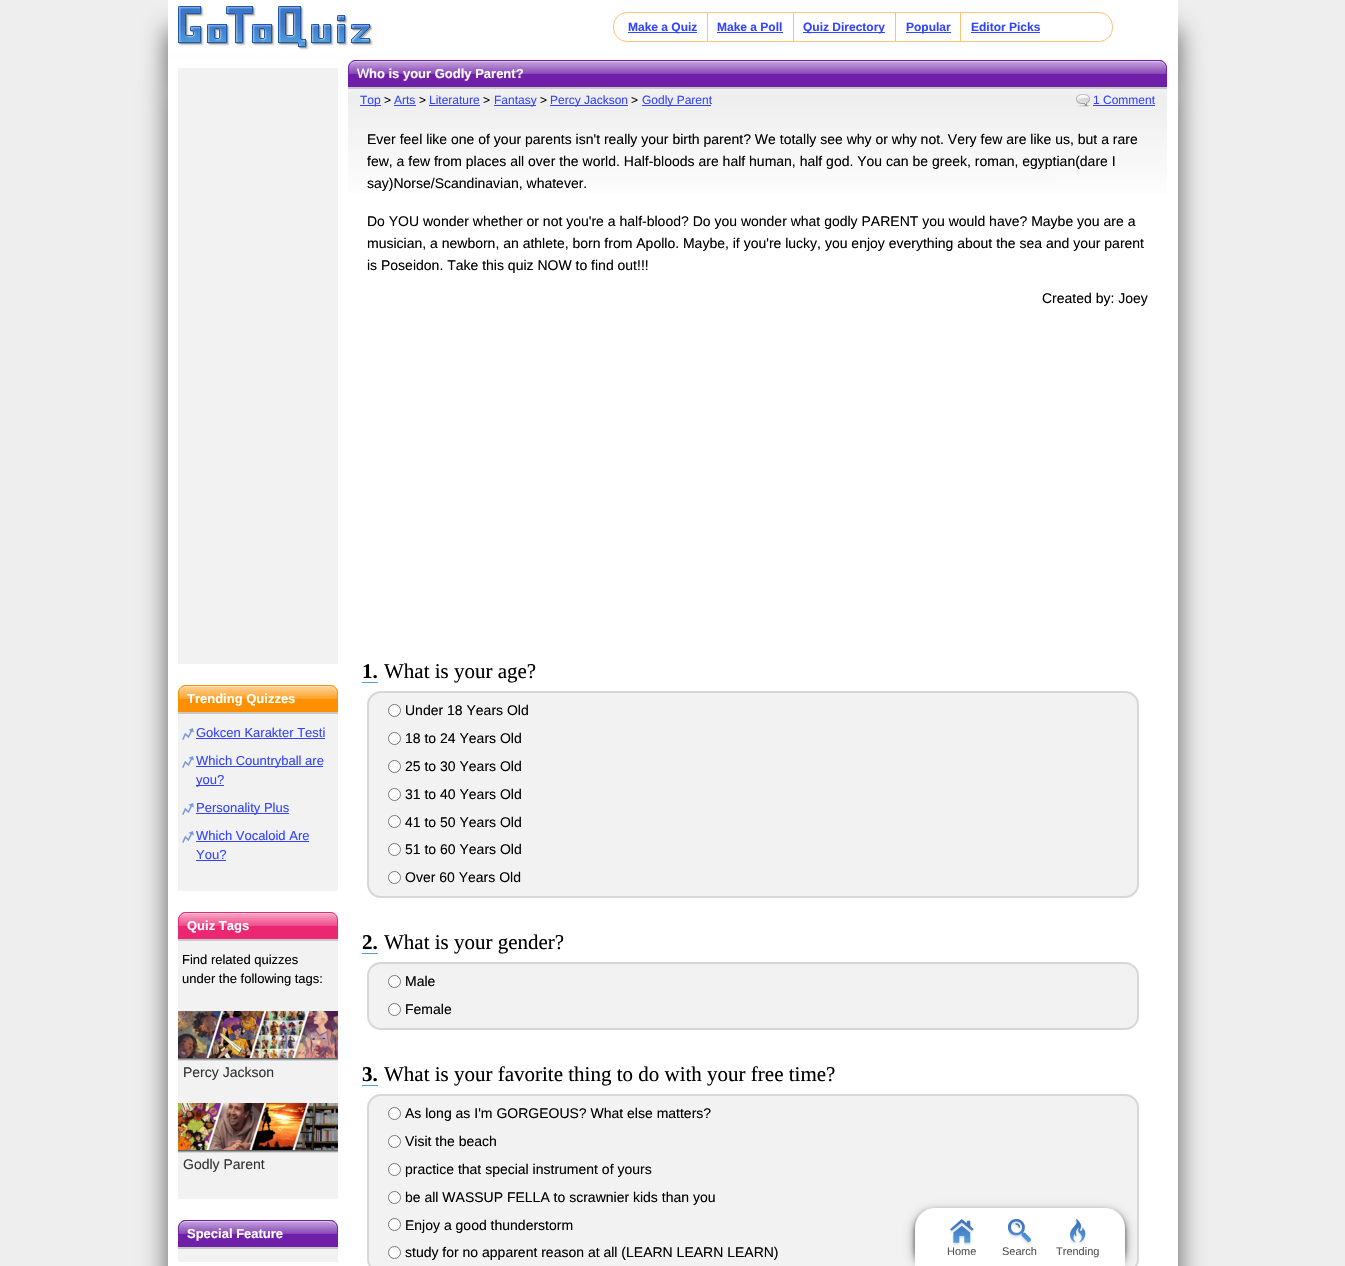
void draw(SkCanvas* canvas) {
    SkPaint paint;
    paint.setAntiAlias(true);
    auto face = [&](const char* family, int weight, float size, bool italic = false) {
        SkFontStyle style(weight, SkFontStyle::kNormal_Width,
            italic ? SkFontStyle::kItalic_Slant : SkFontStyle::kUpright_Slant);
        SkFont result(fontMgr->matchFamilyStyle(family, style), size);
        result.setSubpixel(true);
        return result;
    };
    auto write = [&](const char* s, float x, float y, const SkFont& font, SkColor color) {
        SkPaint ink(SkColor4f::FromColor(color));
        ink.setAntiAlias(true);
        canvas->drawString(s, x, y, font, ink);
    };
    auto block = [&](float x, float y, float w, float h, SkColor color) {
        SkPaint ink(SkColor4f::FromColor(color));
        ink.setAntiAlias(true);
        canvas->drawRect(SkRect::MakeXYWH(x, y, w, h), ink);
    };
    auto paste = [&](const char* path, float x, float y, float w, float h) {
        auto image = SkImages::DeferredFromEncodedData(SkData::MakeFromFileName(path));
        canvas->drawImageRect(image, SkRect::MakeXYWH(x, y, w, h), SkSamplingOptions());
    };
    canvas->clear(SkColorSetRGB(238, 238, 238));
    paint.setColor(SkColorSetRGB(102, 102, 102));
    paint.setMaskFilter(SkMaskFilter::MakeBlur(kNormal_SkBlurStyle, 12));
    canvas->drawRect(SkRect::MakeXYWH(167, 29, 1012, 62), paint);
    paint.setMaskFilter(nullptr);
    block(168, 0, 1010, 60, SK_ColorWHITE);
    paste("pic1.png", 178, 6, 195, 44);
    paint.setStyle(SkPaint::kStroke_Style);
    paint.setStrokeWidth(1);
    paint.setColor(SkColorSetRGB(253, 196, 119));
    canvas->drawRoundRect(SkRect::MakeXYWH(613.5f, 12.5f, 499, 29), 13.5f, 13.5f, paint);
    block(707, 13, 1, 28, SkColorSetRGB(253, 196, 119));
    block(628, 32, 69, 1, SkColorSetRGB(51, 68, 255));
    auto kFont1 = face("Liberation Sans", 700, 12);
    write("Make a Quiz", 628, 31, kFont1, SkColorSetRGB(51, 68, 255));
    block(793, 13, 1, 28, SkColorSetRGB(253, 196, 119));
    write("Make a Poll", 717, 31, kFont1, SkColorSetRGB(51, 68, 255));
    block(717, 32, 66, 1, SkColorSetRGB(51, 68, 255));
    block(895, 13, 1, 28, SkColorSetRGB(253, 196, 119));
    block(803, 32, 82, 1, SkColorSetRGB(51, 68, 255));
    write("Quiz Directory", 803, 31, kFont1, SkColorSetRGB(51, 68, 255));
    block(960, 13, 1, 28, SkColorSetRGB(253, 196, 119));
    block(906, 32, 45, 1, SkColorSetRGB(51, 68, 255));
    write("Popular", 906, 31, kFont1, SkColorSetRGB(51, 68, 255));
    write("Editor Picks", 971, 31, kFont1, SkColorSetRGB(51, 68, 255));
    block(971, 32, 69, 1, SkColorSetRGB(51, 68, 255));
    paint.setStyle(SkPaint::kFill_Style);
    paint.setColor(SkColorSetRGB(102, 102, 102));
    paint.setMaskFilter(SkMaskFilter::MakeBlur(kNormal_SkBlurStyle, 12));
    canvas->drawRect(SkRect::MakeXYWH(167, 89, 1012, 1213), paint);
    paint.setMaskFilter(nullptr);
    block(168, 60, 1010, 1206, SK_ColorWHITE);
    block(178, 68, 160, 596, SkColorSetRGB(242, 242, 242));
    block(178, 714, 160, 177, SkColorSetRGB(242, 242, 242));
    block(178, 712, 160, 2, SkColorSetRGB(200, 200, 200));
    paint.setColor(SkColorSetRGB(253, 144, 0));
    canvas->drawPath(SkPathBuilder().moveTo(186, 685).lineTo(330, 685).cubicTo(334.5f, 685, 338, 688.5f, 338, 693).lineTo(338, 712).lineTo(178, 712).lineTo(178, 693).cubicTo(178, 688.5f, 181.5f, 685, 186, 685).close().detach(), paint);
    canvas->save();
    canvas->clipPath(SkPathBuilder().moveTo(186, 685).lineTo(330, 685).cubicTo(334.5f, 685, 338, 688.5f, 338, 693).lineTo(338, 712).lineTo(178, 712).lineTo(178, 693).cubicTo(178, 688.5f, 181.5f, 685, 186, 685).close().detach(), true);
    {
        const SkColor colors[] = {SkColorSetARGB(0, 255, 255, 255), SkColorSetARGB(46, 255, 255, 255), SkColorSetARGB(153, 255, 255, 255)};
        const float stops[] = {0.5f, 0.5f, 1};
        const SkPoint ends[] = {{258, 711}, {258, 686}};
        paint.setShader(SkGradientShader::MakeLinear(ends, colors, stops, 3, SkTileMode::kClamp));
        paint.setAlpha(255);
    }
    canvas->drawRect(SkRect::MakeXYWH(178, 686, 160, 13), paint);
    canvas->restore();
    paint.setShader(nullptr);
    paint.setColor(SkColorSetARGB(102, 255, 255, 255));
    canvas->drawPath(SkPathBuilder().moveTo(186, 687).lineTo(330, 687).cubicTo(334, 687, 337, 690, 337, 694).lineTo(337, 693).cubicTo(337, 689, 334, 686, 330, 686).lineTo(186, 686).cubicTo(182, 686, 179, 689, 179, 693).lineTo(179, 694).cubicTo(179, 690, 182, 687, 186, 687).close().detach(), paint);
    paint.setStyle(SkPaint::kStroke_Style);
    paint.setColor(SkColorSetRGB(253, 144, 0));
    canvas->drawPath(SkPathBuilder().moveTo(186, 685.5f).lineTo(330, 685.5f).cubicTo(334, 685.5f, 337.5f, 689, 337.5f, 693).lineTo(337.5f, 711.5f).lineTo(178.5f, 711.5f).lineTo(178.5f, 693).cubicTo(178.5f, 689, 182, 685.5f, 186, 685.5f).close().detach(), paint);
    auto kFont2 = face("Liberation Sans", 700, 13);
    write("Trending Quizzes", 187, 703, kFont2, SK_ColorWHITE);
    paste("pic2.png", 182, 728, 12, 12);
    auto kFont3 = face("Liberation Sans", 400, 13);
    write("Gokcen Karakter Testi", 196, 737, kFont3, SkColorSetRGB(51, 68, 255));
    block(196, 738, 129, 1, SkColorSetRGB(51, 68, 255));
    paste("pic2.png", 182, 756, 12, 12);
    block(196, 766, 127, 1, SkColorSetRGB(51, 68, 255));
    write("Which Countryball are", 196, 765, kFont3, SkColorSetRGB(51, 68, 255));
    block(196, 785, 28, 1, SkColorSetRGB(51, 68, 255));
    write("you?", 196, 784, kFont3, SkColorSetRGB(51, 68, 255));
    paste("pic2.png", 182, 803, 12, 12);
    block(196, 813, 93, 1, SkColorSetRGB(51, 68, 255));
    write("Personality Plus", 196, 812, kFont3, SkColorSetRGB(51, 68, 255));
    paste("pic2.png", 182, 831, 12, 12);
    write("Which Vocaloid Are", 196, 840, kFont3, SkColorSetRGB(51, 68, 255));
    block(196, 841, 113, 1, SkColorSetRGB(51, 68, 255));
    write("You?", 196, 859, kFont3, SkColorSetRGB(51, 68, 255));
    block(196, 860, 30, 1, SkColorSetRGB(51, 68, 255));
    block(178, 941, 160, 258, SkColorSetRGB(242, 242, 242));
    block(178, 939, 160, 2, SkColorSetRGB(200, 200, 200));
    paint.setStyle(SkPaint::kFill_Style);
    paint.setColor(SkColorSetRGB(236, 39, 114));
    canvas->drawPath(SkPathBuilder().moveTo(186, 912).lineTo(330, 912).cubicTo(334.5f, 912, 338, 915.5f, 338, 920).lineTo(338, 939).lineTo(178, 939).lineTo(178, 920).cubicTo(178, 915.5f, 181.5f, 912, 186, 912).close().detach(), paint);
    canvas->save();
    canvas->clipPath(SkPathBuilder().moveTo(186, 912).lineTo(330, 912).cubicTo(334.5f, 912, 338, 915.5f, 338, 920).lineTo(338, 939).lineTo(178, 939).lineTo(178, 920).cubicTo(178, 915.5f, 181.5f, 912, 186, 912).close().detach(), true);
    {
        const SkColor colors[] = {SkColorSetARGB(0, 255, 255, 255), SkColorSetARGB(46, 255, 255, 255), SkColorSetARGB(153, 255, 255, 255)};
        const float stops[] = {0.5f, 0.5f, 1};
        const SkPoint ends[] = {{258, 938}, {258, 913}};
        paint.setShader(SkGradientShader::MakeLinear(ends, colors, stops, 3, SkTileMode::kClamp));
        paint.setAlpha(255);
    }
    canvas->drawRect(SkRect::MakeXYWH(178, 913, 160, 13), paint);
    canvas->restore();
    paint.setShader(nullptr);
    paint.setColor(SkColorSetARGB(102, 255, 255, 255));
    canvas->drawPath(SkPathBuilder().moveTo(186, 914).lineTo(330, 914).cubicTo(334, 914, 337, 917, 337, 921).lineTo(337, 920).cubicTo(337, 916, 334, 913, 330, 913).lineTo(186, 913).cubicTo(182, 913, 179, 916, 179, 920).lineTo(179, 921).cubicTo(179, 917, 182, 914, 186, 914).close().detach(), paint);
    paint.setStyle(SkPaint::kStroke_Style);
    paint.setColor(SkColorSetRGB(236, 39, 114));
    canvas->drawPath(SkPathBuilder().moveTo(186, 912.5f).lineTo(330, 912.5f).cubicTo(334, 912.5f, 337.5f, 916, 337.5f, 920).lineTo(337.5f, 938.5f).lineTo(178.5f, 938.5f).lineTo(178.5f, 920).cubicTo(178.5f, 916, 182, 912.5f, 186, 912.5f).close().detach(), paint);
    write("Quiz Tags", 187, 930, kFont2, SK_ColorWHITE);
    write("Find related quizzes", 182, 964, kFont3, SK_ColorBLACK);
    write("under the following tags:", 182, 983, kFont3, SK_ColorBLACK);
    paste("pic3.png", 178, 1011, 160, 47);
    paint.setStyle(SkPaint::kFill_Style);
    {
        const SkColor colors[] = {SkColorSetRGB(73, 73, 73), SkColorSetRGB(242, 242, 242)};
        const float stops[] = {0, 0.11f};
        const SkPoint ends[] = {{258, 1058}, {258, 1085}};
        paint.setShader(SkGradientShader::MakeLinear(ends, colors, stops, 2, SkTileMode::kClamp));
        paint.setAlpha(255);
    }
    canvas->drawRect(SkRect::MakeXYWH(178, 1058, 160, 3), paint);
    auto kFont4 = face("Liberation Sans", 400, 14);
    write("Percy Jackson", 183, 1077, kFont4, SkColorSetRGB(51, 51, 51));
    paste("pic4.png", 178, 1103, 160, 47);
    {
        const SkColor colors[] = {SkColorSetRGB(73, 73, 73), SkColorSetRGB(242, 242, 242)};
        const float stops[] = {0, 0.11f};
        const SkPoint ends[] = {{258, 1150}, {258, 1177}};
        paint.setShader(SkGradientShader::MakeLinear(ends, colors, stops, 2, SkTileMode::kClamp));
        paint.setAlpha(255);
    }
    canvas->drawRect(SkRect::MakeXYWH(178, 1150, 160, 3), paint);
    write("Godly Parent", 183, 1169, kFont4, SkColorSetRGB(51, 51, 51));
    block(178, 1249, 160, 13, SkColorSetRGB(242, 242, 242));
    block(178, 1247, 160, 2, SkColorSetRGB(200, 200, 200));
    paint.setShader(nullptr);
    paint.setColor(SkColorSetRGB(111, 31, 168));
    canvas->drawPath(SkPathBuilder().moveTo(186, 1220).lineTo(330, 1220).cubicTo(334.5f, 1220, 338, 1223.5f, 338, 1228).lineTo(338, 1247).lineTo(178, 1247).lineTo(178, 1228).cubicTo(178, 1223.5f, 181.5f, 1220, 186, 1220).close().detach(), paint);
    canvas->save();
    canvas->clipPath(SkPathBuilder().moveTo(186, 1220).lineTo(330, 1220).cubicTo(334.5f, 1220, 338, 1223.5f, 338, 1228).lineTo(338, 1247).lineTo(178, 1247).lineTo(178, 1228).cubicTo(178, 1223.5f, 181.5f, 1220, 186, 1220).close().detach(), true);
    {
        const SkColor colors[] = {SkColorSetARGB(0, 255, 255, 255), SkColorSetARGB(46, 255, 255, 255), SkColorSetARGB(153, 255, 255, 255)};
        const float stops[] = {0.5f, 0.5f, 1};
        const SkPoint ends[] = {{258, 1246}, {258, 1221}};
        paint.setShader(SkGradientShader::MakeLinear(ends, colors, stops, 3, SkTileMode::kClamp));
        paint.setAlpha(255);
    }
    canvas->drawRect(SkRect::MakeXYWH(178, 1221, 160, 13), paint);
    canvas->restore();
    paint.setShader(nullptr);
    paint.setColor(SkColorSetARGB(102, 255, 255, 255));
    canvas->drawPath(SkPathBuilder().moveTo(186, 1222).lineTo(330, 1222).cubicTo(334, 1222, 337, 1225, 337, 1229).lineTo(337, 1228).cubicTo(337, 1224, 334, 1221, 330, 1221).lineTo(186, 1221).cubicTo(182, 1221, 179, 1224, 179, 1228).lineTo(179, 1229).cubicTo(179, 1225, 182, 1222, 186, 1222).close().detach(), paint);
    paint.setStyle(SkPaint::kStroke_Style);
    paint.setColor(SkColorSetRGB(111, 31, 168));
    canvas->drawPath(SkPathBuilder().moveTo(186, 1220.5f).lineTo(330, 1220.5f).cubicTo(334, 1220.5f, 337.5f, 1224, 337.5f, 1228).lineTo(337.5f, 1246.5f).lineTo(178.5f, 1246.5f).lineTo(178.5f, 1228).cubicTo(178.5f, 1224, 182, 1220.5f, 186, 1220.5f).close().detach(), paint);
    write("Special Feature", 187, 1238, kFont2, SK_ColorWHITE);
    paint.setStyle(SkPaint::kFill_Style);
    {
        const SkColor colors[] = {SK_ColorWHITE, SkColorSetRGB(238, 238, 238), SK_ColorWHITE};
        const float stops[] = {0, 0.01f, 0.04f};
        const SkPoint ends[] = {{757, 60}, {758, 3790}};
        paint.setShader(SkGradientShader::MakeLinear(ends, colors, stops, 3, SkTileMode::kClamp));
        paint.setAlpha(255);
    }
    canvas->drawRect(SkRect::MakeXYWH(348, 65, 819, 128), paint);
    block(348, 87, 819, 2, SkColorSetRGB(200, 200, 200));
    paint.setShader(nullptr);
    paint.setColor(SkColorSetRGB(111, 31, 168));
    canvas->drawPath(SkPathBuilder().moveTo(356, 60).lineTo(1159, 60).cubicTo(1163.5f, 60, 1167, 63.5f, 1167, 68).lineTo(1167, 87).lineTo(348, 87).lineTo(348, 68).cubicTo(348, 63.5f, 351.5f, 60, 356, 60).close().detach(), paint);
    canvas->save();
    canvas->clipPath(SkPathBuilder().moveTo(356, 60).lineTo(1159, 60).cubicTo(1163.5f, 60, 1167, 63.5f, 1167, 68).lineTo(1167, 87).lineTo(348, 87).lineTo(348, 68).cubicTo(348, 63.5f, 351.5f, 60, 356, 60).close().detach(), true);
    {
        const SkColor colors[] = {SkColorSetARGB(0, 255, 255, 255), SkColorSetARGB(46, 255, 255, 255), SkColorSetARGB(153, 255, 255, 255)};
        const float stops[] = {0.5f, 0.5f, 1};
        const SkPoint ends[] = {{758, 86}, {758, 61}};
        paint.setShader(SkGradientShader::MakeLinear(ends, colors, stops, 3, SkTileMode::kClamp));
        paint.setAlpha(255);
    }
    canvas->drawRect(SkRect::MakeXYWH(348, 61, 819, 13), paint);
    canvas->restore();
    paint.setShader(nullptr);
    paint.setColor(SkColorSetARGB(102, 255, 255, 255));
    canvas->drawPath(SkPathBuilder().moveTo(356, 62).lineTo(1159, 62).cubicTo(1163, 62, 1166, 65, 1166, 69).lineTo(1166, 68).cubicTo(1166, 64, 1163, 61, 1159, 61).lineTo(356, 61).cubicTo(352, 61, 349, 64, 349, 68).lineTo(349, 69).cubicTo(349, 65, 352, 62, 356, 62).close().detach(), paint);
    paint.setStyle(SkPaint::kStroke_Style);
    paint.setColor(SkColorSetRGB(111, 31, 168));
    canvas->drawPath(SkPathBuilder().moveTo(356, 60.5f).lineTo(1159, 60.5f).cubicTo(1163, 60.5f, 1166.5f, 64, 1166.5f, 68).lineTo(1166.5f, 86.5f).lineTo(348.5f, 86.5f).lineTo(348.5f, 68).cubicTo(348.5f, 64, 352, 60.5f, 356, 60.5f).close().detach(), paint);
    auto kFont5 = face("Noto Sans", 500, 13);
    write("W", 357, 78, kFont5, SK_ColorWHITE);
    write("ho is your Godly Parent?", 369, 78, kFont2, SK_ColorWHITE);
    block(360, 105, 21, 1, SkColorSetRGB(51, 68, 255));
    auto kFont6 = face("Liberation Sans", 400, 12);
    write("Top", 360, 104, kFont6, SkColorSetRGB(51, 68, 255));
    write(">", 384, 104, kFont6, SK_ColorBLACK);
    write("Arts", 394, 104, kFont6, SkColorSetRGB(51, 68, 255));
    block(394, 105, 22, 1, SkColorSetRGB(51, 68, 255));
    write(">", 419, 104, kFont6, SK_ColorBLACK);
    write("Literature", 429, 104, kFont6, SkColorSetRGB(51, 68, 255));
    block(429, 105, 51, 1, SkColorSetRGB(51, 68, 255));
    write(">", 483, 104, kFont6, SK_ColorBLACK);
    block(494, 105, 42, 1, SkColorSetRGB(51, 68, 255));
    write("Fantasy", 494, 104, kFont6, SkColorSetRGB(51, 68, 255));
    write(">", 540, 104, kFont6, SK_ColorBLACK);
    block(550, 105, 78, 1, SkColorSetRGB(51, 68, 255));
    write("Percy Jackson", 550, 104, kFont6, SkColorSetRGB(51, 68, 255));
    write(">", 631, 104, kFont6, SK_ColorBLACK);
    block(642, 105, 69, 1, SkColorSetRGB(51, 68, 255));
    write("Godly Parent", 642, 104, kFont6, SkColorSetRGB(51, 68, 255));
    paste("pic5.png", 1076, 94, 14, 13);
    write("1 Comment", 1093, 104, kFont6, SkColorSetRGB(51, 68, 255));
    block(1093, 105, 62, 1, SkColorSetRGB(51, 68, 255));
    write("Ever feel like one of your parents isn't really your birth parent? We totally see why or why not. Very few are like us, but a rare", 367, 144, kFont4, SK_ColorBLACK);
    write("few, a few from places all over the world. Half-bloods are half human, half god. You can be greek, roman, egyptian(dare I", 367, 166, kFont4, SK_ColorBLACK);
    write("say)Norse/Scandinavian, whatever.", 367, 188, kFont4, SK_ColorBLACK);
    write("Do YOU wonder whether or not you're a half-blood? Do you wonder what godly PARENT you would have? Maybe you are a", 367, 226, kFont4, SK_ColorBLACK);
    write("musician, a newborn, an athlete, born from Apollo. Maybe, if you're lucky, you enjoy everything about the sea and your parent", 367, 248, kFont4, SK_ColorBLACK);
    write("is Poseidon. Take this quiz NOW to find out!!!", 367, 270, kFont4, SK_ColorBLACK);
    write("Created by: Joey", 1042, 303, kFont4, SK_ColorBLACK);
    block(362, 682, 16, 1, SkColorSetRGB(86, 158, 219));
    auto kFont7 = face("Liberation Serif", 700, 21);
    write("1.", 362, 678, kFont7, SK_ColorBLACK);
    auto kFont8 = face("Liberation Serif", 400, 21);
    write("What is your age?", 384, 678, kFont8, SK_ColorBLACK);
    paint.setStyle(SkPaint::kFill_Style);
    paint.setColor(SkColorSetRGB(242, 242, 242));
    canvas->drawRoundRect(SkRect::MakeXYWH(368, 692, 770, 205), 13, 13, paint);
    paint.setStyle(SkPaint::kStroke_Style);
    paint.setStrokeWidth(2);
    paint.setColor(SkColorSetRGB(215, 215, 215));
    canvas->drawRoundRect(SkRect::MakeXYWH(368, 692, 770, 205), 13, 13, paint);
    paint.setStyle(SkPaint::kFill_Style);
    paint.setColor(SK_ColorWHITE);
    canvas->drawCircle(394.5f, 710.5f, 6, paint);
    paint.setStyle(SkPaint::kStroke_Style);
    paint.setStrokeWidth(1);
    paint.setColor(SkColorSetRGB(118, 118, 118));
    canvas->drawCircle(394.5f, 710.5f, 6, paint);
    write("Under 18 Years Old", 405, 715, kFont4, SK_ColorBLACK);
    paint.setStyle(SkPaint::kFill_Style);
    paint.setColor(SK_ColorWHITE);
    canvas->drawCircle(394.5f, 738.5f, 6, paint);
    paint.setStyle(SkPaint::kStroke_Style);
    paint.setColor(SkColorSetRGB(118, 118, 118));
    canvas->drawCircle(394.5f, 738.5f, 6, paint);
    write("18 to 24 Years Old", 405, 743, kFont4, SK_ColorBLACK);
    paint.setStyle(SkPaint::kFill_Style);
    paint.setColor(SK_ColorWHITE);
    canvas->drawCircle(394.5f, 766.5f, 6, paint);
    paint.setStyle(SkPaint::kStroke_Style);
    paint.setColor(SkColorSetRGB(118, 118, 118));
    canvas->drawCircle(394.5f, 766.5f, 6, paint);
    write("25 to 30 Years Old", 405, 771, kFont4, SK_ColorBLACK);
    paint.setStyle(SkPaint::kFill_Style);
    paint.setColor(SK_ColorWHITE);
    canvas->drawCircle(394.5f, 794.5f, 6, paint);
    paint.setStyle(SkPaint::kStroke_Style);
    paint.setColor(SkColorSetRGB(118, 118, 118));
    canvas->drawCircle(394.5f, 794.5f, 6, paint);
    write("31 to 40 Years Old", 405, 799, kFont4, SK_ColorBLACK);
    paint.setStyle(SkPaint::kFill_Style);
    paint.setColor(SK_ColorWHITE);
    canvas->drawCircle(394.5f, 821.5f, 6, paint);
    paint.setStyle(SkPaint::kStroke_Style);
    paint.setColor(SkColorSetRGB(118, 118, 118));
    canvas->drawCircle(394.5f, 821.5f, 6, paint);
    write("41 to 50 Years Old", 405, 827, kFont4, SK_ColorBLACK);
    paint.setStyle(SkPaint::kFill_Style);
    paint.setColor(SK_ColorWHITE);
    canvas->drawCircle(394.5f, 849.5f, 6, paint);
    paint.setStyle(SkPaint::kStroke_Style);
    paint.setColor(SkColorSetRGB(118, 118, 118));
    canvas->drawCircle(394.5f, 849.5f, 6, paint);
    write("51 to 60 Years Old", 405, 854, kFont4, SK_ColorBLACK);
    paint.setStyle(SkPaint::kFill_Style);
    paint.setColor(SK_ColorWHITE);
    canvas->drawCircle(394.5f, 877.5f, 6, paint);
    paint.setStyle(SkPaint::kStroke_Style);
    paint.setColor(SkColorSetRGB(118, 118, 118));
    canvas->drawCircle(394.5f, 877.5f, 6, paint);
    write("Over 60 Years Old", 405, 882, kFont4, SK_ColorBLACK);
    block(362, 953, 16, 1, SkColorSetRGB(86, 158, 219));
    write("2.", 362, 949, kFont7, SK_ColorBLACK);
    write("What is your gender?", 384, 949, kFont8, SK_ColorBLACK);
    paint.setStyle(SkPaint::kFill_Style);
    paint.setColor(SkColorSetRGB(242, 242, 242));
    canvas->drawRoundRect(SkRect::MakeXYWH(368, 963, 770, 66), 13, 13, paint);
    paint.setStyle(SkPaint::kStroke_Style);
    paint.setStrokeWidth(2);
    paint.setColor(SkColorSetRGB(215, 215, 215));
    canvas->drawRoundRect(SkRect::MakeXYWH(368, 963, 770, 66), 13, 13, paint);
    paint.setStyle(SkPaint::kFill_Style);
    paint.setColor(SK_ColorWHITE);
    canvas->drawCircle(394.5f, 981.5f, 6, paint);
    paint.setStyle(SkPaint::kStroke_Style);
    paint.setStrokeWidth(1);
    paint.setColor(SkColorSetRGB(118, 118, 118));
    canvas->drawCircle(394.5f, 981.5f, 6, paint);
    write("Male", 405, 986, kFont4, SK_ColorBLACK);
    paint.setStyle(SkPaint::kFill_Style);
    paint.setColor(SK_ColorWHITE);
    canvas->drawCircle(394.5f, 1009.5f, 6, paint);
    paint.setStyle(SkPaint::kStroke_Style);
    paint.setColor(SkColorSetRGB(118, 118, 118));
    canvas->drawCircle(394.5f, 1009.5f, 6, paint);
    write("Female", 405, 1014, kFont4, SK_ColorBLACK);
    block(362, 1085, 16, 1, SkColorSetRGB(86, 158, 219));
    write("3.", 362, 1081, kFont7, SK_ColorBLACK);
    write("What is your favorite thing to do with your free time?", 384, 1081, kFont8, SK_ColorBLACK);
    paint.setStyle(SkPaint::kFill_Style);
    paint.setColor(SkColorSetRGB(242, 242, 242));
    canvas->drawRoundRect(SkRect::MakeXYWH(368, 1095, 770, 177), 13, 13, paint);
    paint.setStyle(SkPaint::kStroke_Style);
    paint.setStrokeWidth(2);
    paint.setColor(SkColorSetRGB(215, 215, 215));
    canvas->drawRoundRect(SkRect::MakeXYWH(368, 1095, 770, 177), 13, 13, paint);
    paint.setStyle(SkPaint::kFill_Style);
    paint.setColor(SK_ColorWHITE);
    canvas->drawCircle(394.5f, 1113.5f, 6, paint);
    paint.setStyle(SkPaint::kStroke_Style);
    paint.setStrokeWidth(1);
    paint.setColor(SkColorSetRGB(118, 118, 118));
    canvas->drawCircle(394.5f, 1113.5f, 6, paint);
    write("As long as I'm GORGEOUS? What else matters?", 405, 1118, kFont4, SK_ColorBLACK);
    paint.setStyle(SkPaint::kFill_Style);
    paint.setColor(SK_ColorWHITE);
    canvas->drawCircle(394.5f, 1141.5f, 6, paint);
    paint.setStyle(SkPaint::kStroke_Style);
    paint.setColor(SkColorSetRGB(118, 118, 118));
    canvas->drawCircle(394.5f, 1141.5f, 6, paint);
    write("Visit the beach", 405, 1146, kFont4, SK_ColorBLACK);
    paint.setStyle(SkPaint::kFill_Style);
    paint.setColor(SK_ColorWHITE);
    canvas->drawCircle(394.5f, 1169.5f, 6, paint);
    paint.setStyle(SkPaint::kStroke_Style);
    paint.setColor(SkColorSetRGB(118, 118, 118));
    canvas->drawCircle(394.5f, 1169.5f, 6, paint);
    write("practice that special instrument of yours", 405, 1174, kFont4, SK_ColorBLACK);
    paint.setStyle(SkPaint::kFill_Style);
    paint.setColor(SK_ColorWHITE);
    canvas->drawCircle(394.5f, 1197.5f, 6, paint);
    paint.setStyle(SkPaint::kStroke_Style);
    paint.setColor(SkColorSetRGB(118, 118, 118));
    canvas->drawCircle(394.5f, 1197.5f, 6, paint);
    write("be all WASSUP FELLA to scrawnier kids than you", 405, 1202, kFont4, SK_ColorBLACK);
    paint.setStyle(SkPaint::kFill_Style);
    paint.setColor(SK_ColorWHITE);
    canvas->drawCircle(394.5f, 1224.5f, 6, paint);
    paint.setStyle(SkPaint::kStroke_Style);
    paint.setColor(SkColorSetRGB(118, 118, 118));
    canvas->drawCircle(394.5f, 1224.5f, 6, paint);
    write("Enjoy a good thunderstorm", 405, 1230, kFont4, SK_ColorBLACK);
    paint.setStyle(SkPaint::kFill_Style);
    paint.setColor(SK_ColorWHITE);
    canvas->drawCircle(394.5f, 1252.5f, 6, paint);
    paint.setStyle(SkPaint::kStroke_Style);
    paint.setColor(SkColorSetRGB(118, 118, 118));
    canvas->drawCircle(394.5f, 1252.5f, 6, paint);
    write("study for no apparent reason at all (LEARN LEARN LEARN)", 405, 1257, kFont4, SK_ColorBLACK);
    paint.setStyle(SkPaint::kFill_Style);
    paint.setColor(SkColorSetARGB(138, 0, 0, 0));
    paint.setMaskFilter(SkMaskFilter::MakeBlur(kNormal_SkBlurStyle, 2.5f));
    canvas->drawRoundRect(SkRect::MakeXYWH(915, 1211, 210, 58), 20, 20, paint);
    paint.setMaskFilter(nullptr);
    paint.setColor(SkColorSetARGB(105, 0, 0, 0));
    paint.setMaskFilter(SkMaskFilter::MakeBlur(kNormal_SkBlurStyle, 6));
    canvas->drawRoundRect(SkRect::MakeXYWH(915, 1212, 210, 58), 20, 20, paint);
    paint.setMaskFilter(nullptr);
    paint.setColor(SK_ColorWHITE);
    canvas->drawPath(SkPathBuilder().moveTo(935, 1208).lineTo(1105, 1208).cubicTo(1116, 1208, 1125, 1217, 1125, 1228).lineTo(1125, 1266).lineTo(915, 1266).lineTo(915, 1228).cubicTo(915, 1217, 924, 1208, 935, 1208).close().detach(), paint);
    paste("pic6.png", 950, 1219, 24, 27);
    auto kFont9 = face("Liberation Sans", 400, 11);
    write("Home", 947, 1255, kFont9, SkColorSetRGB(85, 85, 85));
    paste("pic7.png", 1008, 1219, 24, 26);
    write("Search", 1002, 1255, kFont9, SkColorSetRGB(85, 85, 85));
    paste("pic8.png", 1070, 1219, 16, 26);
    write("Trending", 1056, 1255, kFont9, SkColorSetRGB(85, 85, 85));
}
